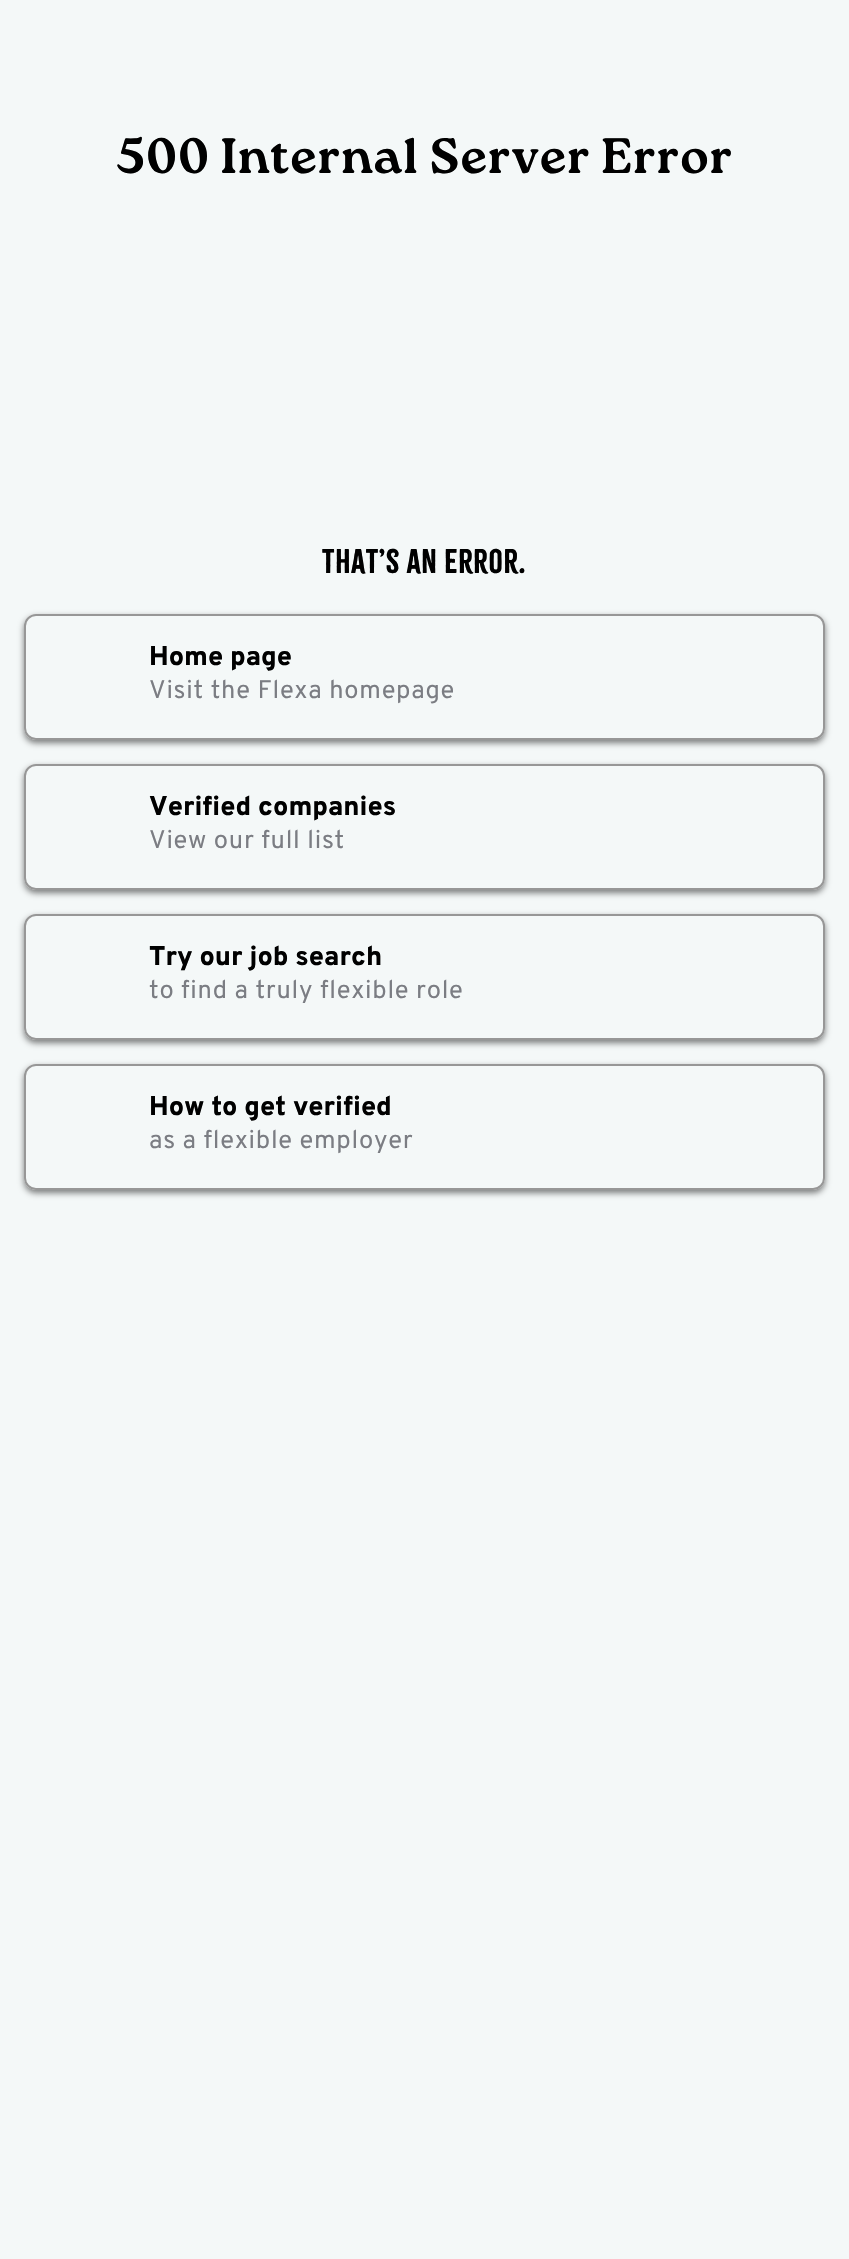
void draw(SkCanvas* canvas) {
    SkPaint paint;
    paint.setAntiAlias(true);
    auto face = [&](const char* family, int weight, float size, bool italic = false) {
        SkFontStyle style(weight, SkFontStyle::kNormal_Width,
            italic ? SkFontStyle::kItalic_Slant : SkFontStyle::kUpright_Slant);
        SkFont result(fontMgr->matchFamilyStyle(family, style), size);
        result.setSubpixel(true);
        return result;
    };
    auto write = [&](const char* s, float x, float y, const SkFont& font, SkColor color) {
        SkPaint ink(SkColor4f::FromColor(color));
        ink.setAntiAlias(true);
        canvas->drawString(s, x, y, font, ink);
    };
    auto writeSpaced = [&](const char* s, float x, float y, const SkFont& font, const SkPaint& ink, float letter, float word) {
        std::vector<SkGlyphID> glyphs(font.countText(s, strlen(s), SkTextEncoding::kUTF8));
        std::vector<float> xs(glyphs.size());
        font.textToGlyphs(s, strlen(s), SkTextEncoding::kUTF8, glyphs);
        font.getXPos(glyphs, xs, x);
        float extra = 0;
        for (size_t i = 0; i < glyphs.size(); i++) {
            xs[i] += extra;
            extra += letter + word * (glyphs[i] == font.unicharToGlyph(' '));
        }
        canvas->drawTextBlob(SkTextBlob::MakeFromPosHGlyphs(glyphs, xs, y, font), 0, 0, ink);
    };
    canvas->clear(SkColorSetRGB(244, 248, 248));
    auto kFont1 = face("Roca", 700, 49.5f);
    paint.setColor(SK_ColorBLACK);
    writeSpaced("500 Internal Server Error", 116, 173, kFont1, paint, 0.75f, 0);
    auto kFont2 = face("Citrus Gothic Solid", 400, 30);
    writeSpaced("That’s an error.", 322, 573, kFont2, paint, 0.75f, 0);
    canvas->save();
    canvas->clipPath(SkPathBuilder(SkPathFillType::kEvenOdd).moveTo(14, 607).lineTo(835, 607).lineTo(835, 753).lineTo(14, 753).close().moveTo(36, 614).lineTo(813, 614).cubicTo(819.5f, 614, 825, 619.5f, 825, 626).lineTo(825, 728).cubicTo(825, 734.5f, 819.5f, 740, 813, 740).lineTo(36, 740).cubicTo(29.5f, 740, 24, 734.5f, 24, 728).lineTo(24, 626).cubicTo(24, 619.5f, 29.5f, 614, 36, 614).close().detach(), true);
    paint.setColor(SkColorSetARGB(128, 0, 0, 0));
    paint.setMaskFilter(SkMaskFilter::MakeBlur(kNormal_SkBlurStyle, 3));
    canvas->drawRoundRect(SkRect::MakeXYWH(24, 617, 801, 126), 12, 12, paint);
    paint.setMaskFilter(nullptr);
    canvas->restore();
    paint.setStyle(SkPaint::kStroke_Style);
    paint.setStrokeWidth(2);
    paint.setColor(SkColorSetRGB(151, 151, 151));
    canvas->drawRoundRect(SkRect::MakeXYWH(25, 615, 799, 124), 11, 11, paint);
    auto kFont3 = face("Overpass", 800, 27);
    write("Home page", 149, 665, kFont3, SK_ColorBLACK);
    auto kFont4 = face("Overpass", 400, 25.5f);
    paint.setStyle(SkPaint::kFill_Style);
    paint.setColor(SkColorSetRGB(123, 125, 131));
    writeSpaced("Visit the Flexa homepage", 149, 698, kFont4, paint, 0.75f, 0);
    canvas->save();
    canvas->clipPath(SkPathBuilder(SkPathFillType::kEvenOdd).moveTo(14, 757).lineTo(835, 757).lineTo(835, 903).lineTo(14, 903).close().moveTo(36, 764).lineTo(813, 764).cubicTo(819.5f, 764, 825, 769.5f, 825, 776).lineTo(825, 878).cubicTo(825, 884.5f, 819.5f, 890, 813, 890).lineTo(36, 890).cubicTo(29.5f, 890, 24, 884.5f, 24, 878).lineTo(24, 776).cubicTo(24, 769.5f, 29.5f, 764, 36, 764).close().detach(), true);
    paint.setColor(SkColorSetARGB(128, 0, 0, 0));
    paint.setMaskFilter(SkMaskFilter::MakeBlur(kNormal_SkBlurStyle, 3));
    canvas->drawRoundRect(SkRect::MakeXYWH(24, 767, 801, 126), 12, 12, paint);
    paint.setMaskFilter(nullptr);
    canvas->restore();
    paint.setStyle(SkPaint::kStroke_Style);
    paint.setColor(SkColorSetRGB(151, 151, 151));
    canvas->drawRoundRect(SkRect::MakeXYWH(25, 765, 799, 124), 11, 11, paint);
    write("Verified companies", 149, 815, kFont3, SK_ColorBLACK);
    paint.setStyle(SkPaint::kFill_Style);
    paint.setColor(SkColorSetRGB(123, 125, 131));
    writeSpaced("View our full list", 149, 848, kFont4, paint, 0.75f, 0);
    canvas->save();
    canvas->clipPath(SkPathBuilder(SkPathFillType::kEvenOdd).moveTo(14, 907).lineTo(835, 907).lineTo(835, 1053).lineTo(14, 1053).close().moveTo(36, 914).lineTo(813, 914).cubicTo(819.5f, 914, 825, 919.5f, 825, 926).lineTo(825, 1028).cubicTo(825, 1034.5f, 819.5f, 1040, 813, 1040).lineTo(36, 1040).cubicTo(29.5f, 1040, 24, 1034.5f, 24, 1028).lineTo(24, 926).cubicTo(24, 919.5f, 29.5f, 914, 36, 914).close().detach(), true);
    paint.setColor(SkColorSetARGB(128, 0, 0, 0));
    paint.setMaskFilter(SkMaskFilter::MakeBlur(kNormal_SkBlurStyle, 3));
    canvas->drawRoundRect(SkRect::MakeXYWH(24, 917, 801, 126), 12, 12, paint);
    paint.setMaskFilter(nullptr);
    canvas->restore();
    paint.setStyle(SkPaint::kStroke_Style);
    paint.setColor(SkColorSetRGB(151, 151, 151));
    canvas->drawRoundRect(SkRect::MakeXYWH(25, 915, 799, 124), 11, 11, paint);
    write("Try our job search", 149, 965, kFont3, SK_ColorBLACK);
    paint.setStyle(SkPaint::kFill_Style);
    paint.setColor(SkColorSetRGB(123, 125, 131));
    writeSpaced("to find a truly flexible role", 149, 998, kFont4, paint, 0.75f, 0);
    canvas->save();
    canvas->clipPath(SkPathBuilder(SkPathFillType::kEvenOdd).moveTo(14, 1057).lineTo(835, 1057).lineTo(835, 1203).lineTo(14, 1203).close().moveTo(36, 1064).lineTo(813, 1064).cubicTo(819.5f, 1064, 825, 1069.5f, 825, 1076).lineTo(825, 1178).cubicTo(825, 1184.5f, 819.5f, 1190, 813, 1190).lineTo(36, 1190).cubicTo(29.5f, 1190, 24, 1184.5f, 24, 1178).lineTo(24, 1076).cubicTo(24, 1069.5f, 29.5f, 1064, 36, 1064).close().detach(), true);
    paint.setColor(SkColorSetARGB(128, 0, 0, 0));
    paint.setMaskFilter(SkMaskFilter::MakeBlur(kNormal_SkBlurStyle, 3));
    canvas->drawRoundRect(SkRect::MakeXYWH(24, 1067, 801, 126), 12, 12, paint);
    paint.setMaskFilter(nullptr);
    canvas->restore();
    paint.setStyle(SkPaint::kStroke_Style);
    paint.setColor(SkColorSetRGB(151, 151, 151));
    canvas->drawRoundRect(SkRect::MakeXYWH(25, 1065, 799, 124), 11, 11, paint);
    write("How to get verified", 149, 1115, kFont3, SK_ColorBLACK);
    paint.setStyle(SkPaint::kFill_Style);
    paint.setColor(SkColorSetRGB(123, 125, 131));
    writeSpaced("as a flexible employer", 149, 1148, kFont4, paint, 0.75f, 0);
}
